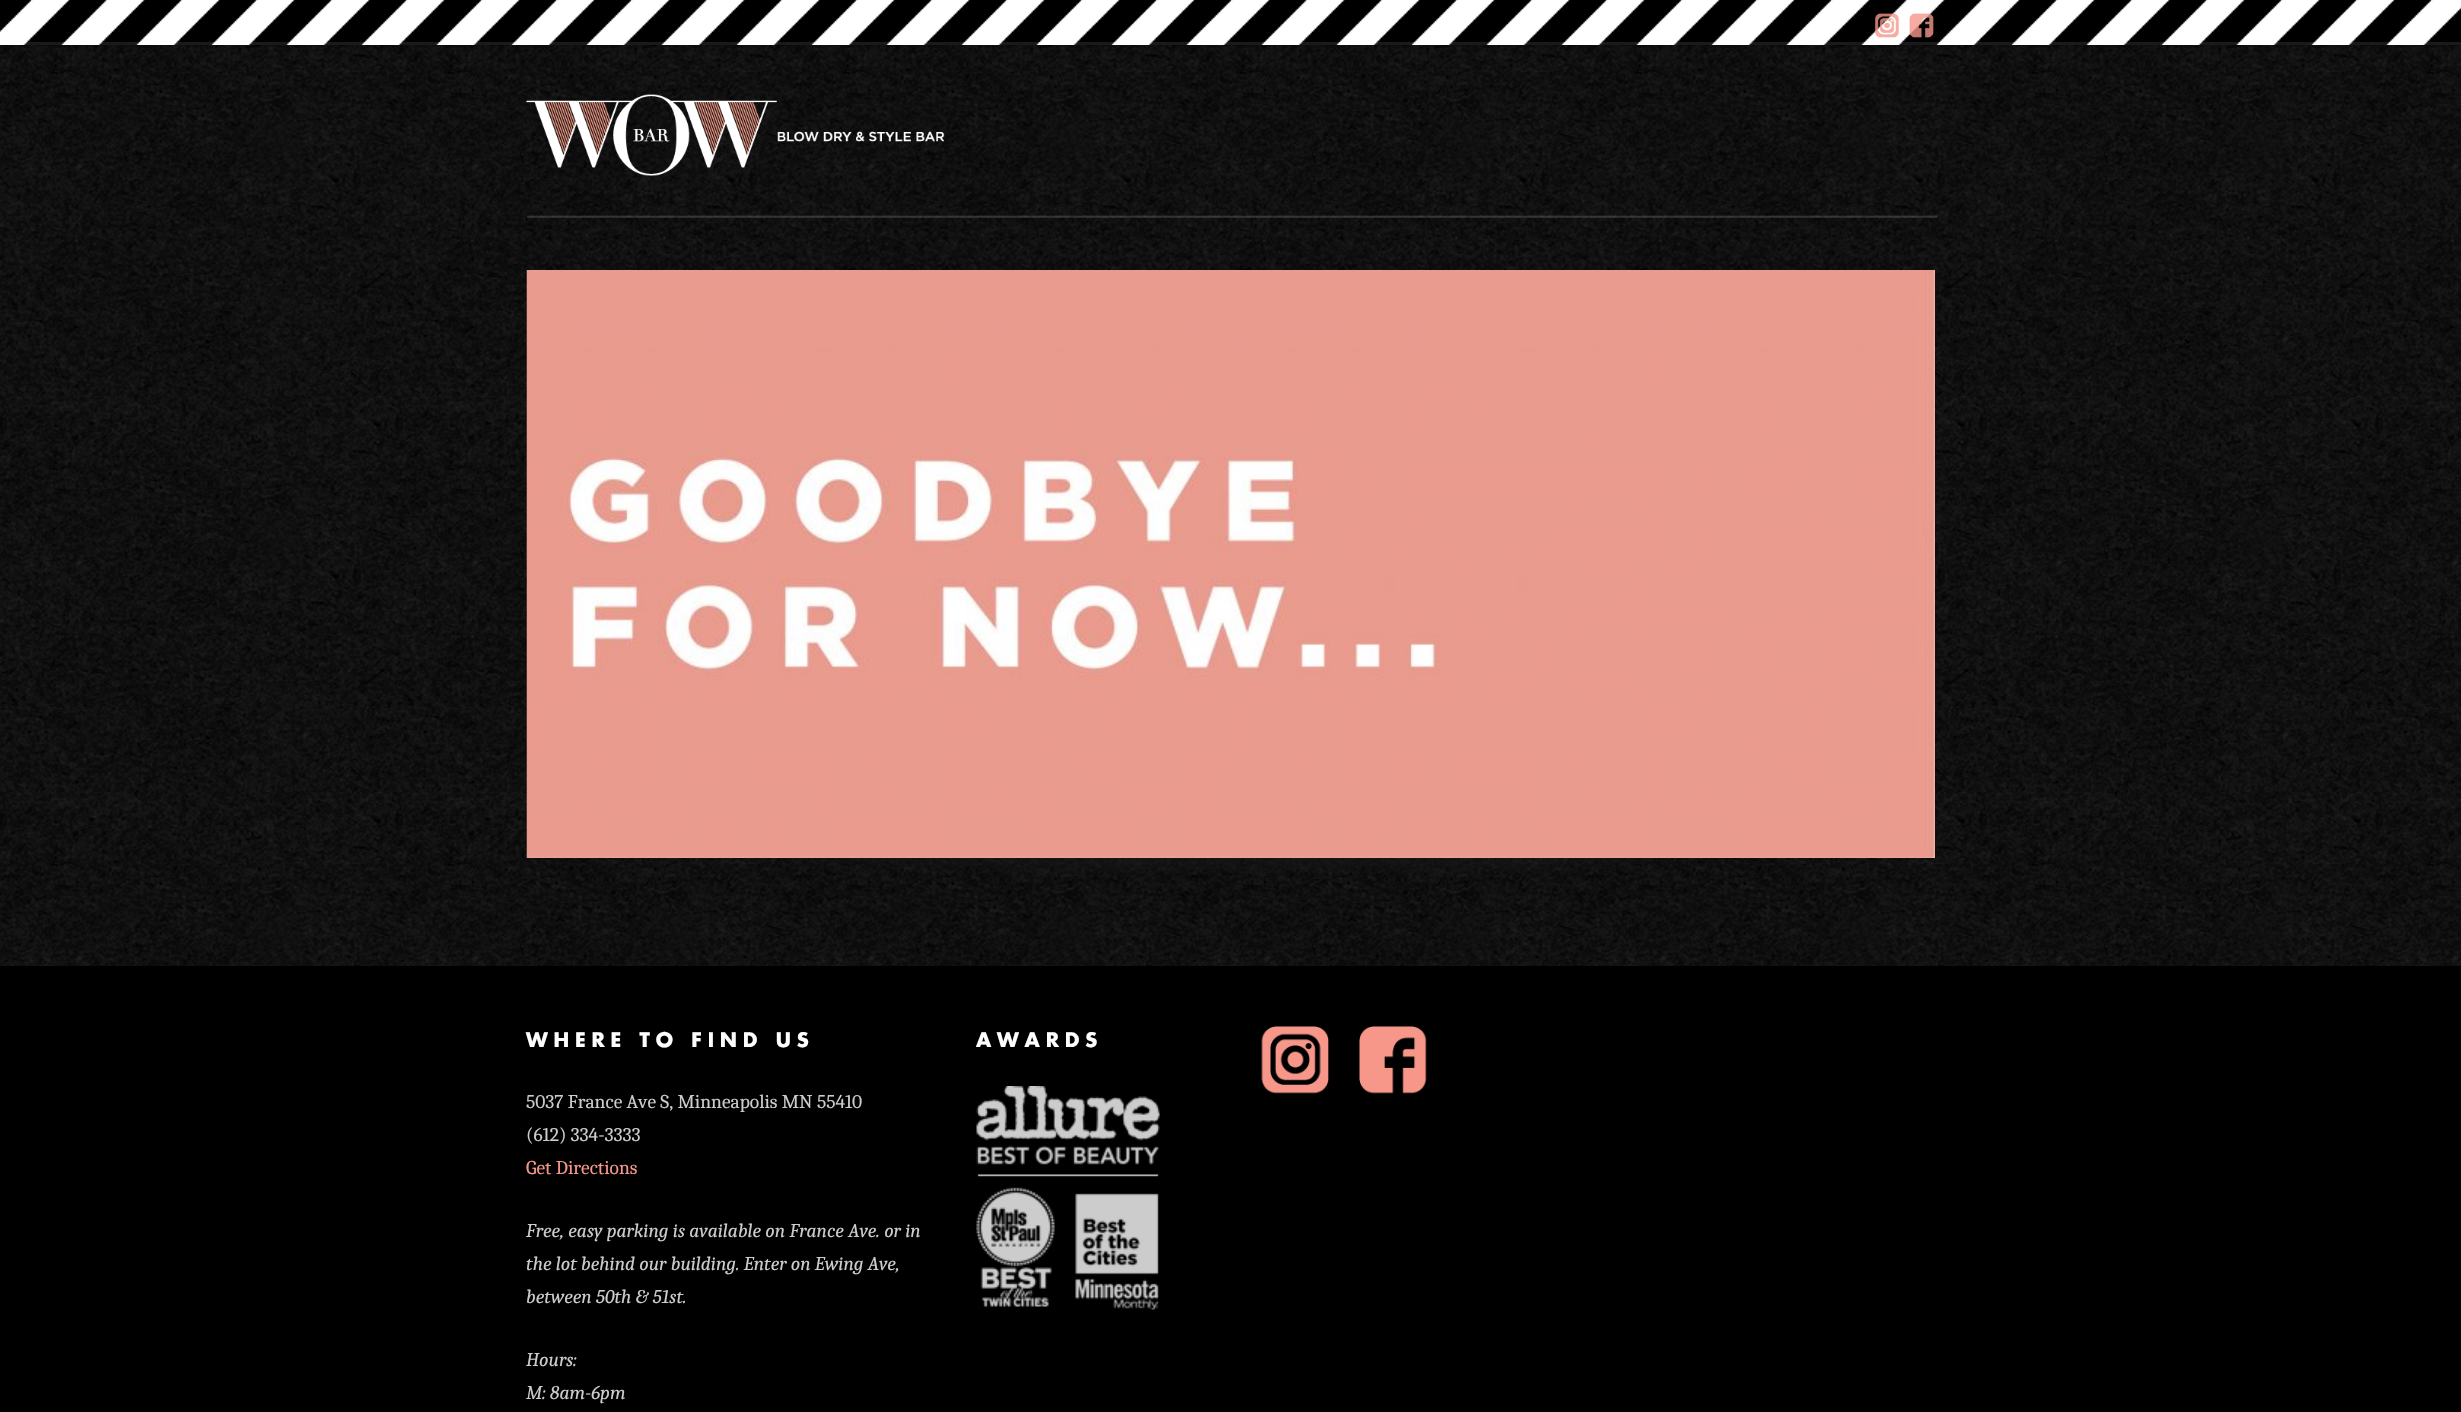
void draw(SkCanvas* canvas) {
    SkPaint paint;
    paint.setAntiAlias(true);
    auto face = [&](const char* family, int weight, float size, bool italic = false) {
        SkFontStyle style(weight, SkFontStyle::kNormal_Width,
            italic ? SkFontStyle::kItalic_Slant : SkFontStyle::kUpright_Slant);
        SkFont result(fontMgr->matchFamilyStyle(family, style), size);
        result.setSubpixel(true);
        return result;
    };
    auto write = [&](const char* s, float x, float y, const SkFont& font, SkColor color) {
        SkPaint ink(SkColor4f::FromColor(color));
        ink.setAntiAlias(true);
        canvas->drawString(s, x, y, font, ink);
    };
    auto writeSpaced = [&](const char* s, float x, float y, const SkFont& font, const SkPaint& ink, float letter, float word) {
        std::vector<SkGlyphID> glyphs(font.countText(s, strlen(s), SkTextEncoding::kUTF8));
        std::vector<float> xs(glyphs.size());
        font.textToGlyphs(s, strlen(s), SkTextEncoding::kUTF8, glyphs);
        font.getXPos(glyphs, xs, x);
        float extra = 0;
        for (size_t i = 0; i < glyphs.size(); i++) {
            xs[i] += extra;
            extra += letter + word * (glyphs[i] == font.unicharToGlyph(' '));
        }
        canvas->drawTextBlob(SkTextBlob::MakeFromPosHGlyphs(glyphs, xs, y, font), 0, 0, ink);
    };
    auto block = [&](float x, float y, float w, float h, SkColor color) {
        SkPaint ink(SkColor4f::FromColor(color));
        ink.setAntiAlias(true);
        canvas->drawRect(SkRect::MakeXYWH(x, y, w, h), ink);
    };
    auto paste = [&](const char* path, float x, float y, float w, float h) {
        auto image = SkImages::DeferredFromEncodedData(SkData::MakeFromFileName(path));
        canvas->drawImageRect(image, SkRect::MakeXYWH(x, y, w, h), SkSamplingOptions());
    };
    canvas->clear(SK_ColorWHITE);
    paste("pic1.png", 0, 45, 2461, 921);
    paint.setColor(SkColorSetARGB(128, 0, 0, 0));
    paint.setMaskFilter(SkMaskFilter::MakeBlur(kNormal_SkBlurStyle, 2));
    canvas->drawRect(SkRect::MakeXYWH(0, 0, 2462, 45), paint);
    paint.setMaskFilter(nullptr);
    paste("pic2.png", 0, 0, 2461, 45);
    block(24, 42, 2437, 3, SkColorSetARGB(26, 255, 255, 255));
    paste("pic3.png", 1875, 13, 24, 25);
    paste("pic4.png", 1909, 13, 25, 25);
    paste("pic5.png", 526, 94, 419, 82);
    block(527, 215, 1410, 2, SkColorSetARGB(13, 255, 255, 255));
    block(527, 216, 1410, 2, SkColorSetARGB(51, 150, 150, 150));
    paste("pic6.png", 526, 270, 1409, 588);
    paste("pic7.png", 789, 858, 866, 15);
    block(0, 966, 2461, 446, SK_ColorBLACK);
    auto kFont1 = face("Futura", 700, 19.5f);
    paint.setColor(SkColorSetRGB(254, 254, 254));
    writeSpaced("WHERE TO FIND US", 526, 1047, kFont1, paint, 5.8f, 0);
    auto kFont2 = face("Caladea", 400, 19.5f);
    write("5037 France Ave S, Minneapolis MN 55410", 526, 1108, kFont2, SkColorSetRGB(204, 204, 204));
    write("(612) 334-3333", 526, 1141, kFont2, SkColorSetRGB(204, 204, 204));
    write("Get Directions", 526, 1174, kFont2, SkColorSetRGB(246, 151, 137));
    auto kFont3 = face("Caladea", 400, 19.5f, true);
    write("Free, easy parking is available on France Ave. or in", 526, 1237, kFont3, SkColorSetRGB(204, 204, 204));
    write("the lot behind our building. Enter on Ewing Ave,", 526, 1270, kFont3, SkColorSetRGB(204, 204, 204));
    write("between 50th & 51st.", 526, 1303, kFont3, SkColorSetRGB(204, 204, 204));
    write("Hours:", 526, 1366, kFont3, SkColorSetRGB(204, 204, 204));
    write("M: 8am-6pm", 526, 1399, kFont3, SkColorSetRGB(204, 204, 204));
    writeSpaced("AWARDS", 976, 1047, kFont1, paint, 5.8f, 0);
    paste("pic8.png", 976, 1086, 184, 224);
    paste("pic9.png", 1261, 1026, 68, 68);
    paste("pic10.png", 1359, 1026, 68, 68);
}
